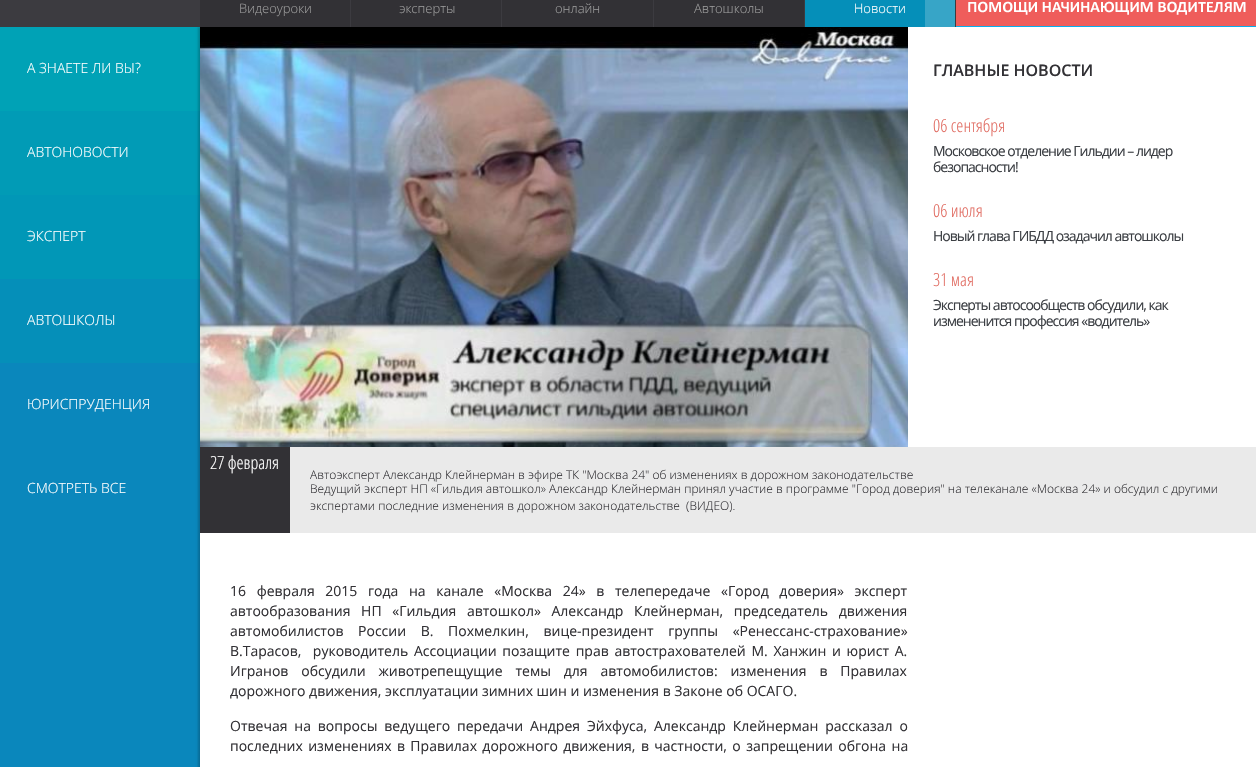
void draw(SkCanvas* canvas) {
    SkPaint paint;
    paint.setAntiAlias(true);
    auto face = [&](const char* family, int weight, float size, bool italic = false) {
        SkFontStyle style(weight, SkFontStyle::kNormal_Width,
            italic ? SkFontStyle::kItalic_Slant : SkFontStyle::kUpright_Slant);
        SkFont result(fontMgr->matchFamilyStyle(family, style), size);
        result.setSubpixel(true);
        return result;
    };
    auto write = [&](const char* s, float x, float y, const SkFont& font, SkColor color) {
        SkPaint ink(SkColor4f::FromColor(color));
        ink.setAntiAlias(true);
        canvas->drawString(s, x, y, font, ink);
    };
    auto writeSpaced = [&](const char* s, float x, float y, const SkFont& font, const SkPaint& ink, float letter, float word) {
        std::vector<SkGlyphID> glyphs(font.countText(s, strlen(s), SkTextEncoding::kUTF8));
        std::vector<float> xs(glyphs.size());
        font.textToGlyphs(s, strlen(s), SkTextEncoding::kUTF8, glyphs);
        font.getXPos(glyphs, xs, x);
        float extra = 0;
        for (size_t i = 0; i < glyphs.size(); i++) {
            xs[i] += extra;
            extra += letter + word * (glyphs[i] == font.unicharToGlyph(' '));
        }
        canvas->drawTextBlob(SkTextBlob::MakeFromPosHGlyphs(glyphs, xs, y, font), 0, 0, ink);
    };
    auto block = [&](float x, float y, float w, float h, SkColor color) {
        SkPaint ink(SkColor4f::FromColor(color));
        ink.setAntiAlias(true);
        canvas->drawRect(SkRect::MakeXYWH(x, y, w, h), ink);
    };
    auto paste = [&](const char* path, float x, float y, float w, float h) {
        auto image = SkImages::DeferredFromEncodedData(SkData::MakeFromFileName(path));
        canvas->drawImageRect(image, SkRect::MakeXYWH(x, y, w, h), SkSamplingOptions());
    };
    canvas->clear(SkColorSetRGB(10, 135, 188));
    block(0, 27, 200, 84, SkColorSetRGB(0, 162, 182));
    block(0, 111, 200, 84, SkColorSetRGB(1, 155, 182));
    block(0, 195, 200, 84, SkColorSetRGB(1, 151, 183));
    block(0, 279, 200, 84, SkColorSetRGB(5, 143, 185));
    paint.setColor(SkColorSetARGB(51, 0, 0, 0));
    paint.setMaskFilter(SkMaskFilter::MakeBlur(kNormal_SkBlurStyle, 1));
    canvas->drawRect(SkRect::MakeXYWH(198, 27, 1056, 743), paint);
    paint.setMaskFilter(nullptr);
    block(0, 0, 200, 27, SkColorSetRGB(60, 59, 64));
    block(200, 0, 150, 27, SkColorSetRGB(50, 49, 53));
    auto kFont1 = face("Open Sans", 300, 13);
    write("Видеоуроки", 239, 13, kFont1, SkColorSetRGB(156, 156, 156));
    block(350, 0, 1, 27, SkColorSetRGB(60, 59, 64));
    block(351, 0, 150, 27, SkColorSetRGB(50, 49, 53));
    write("эксперты", 399, 13, kFont1, SkColorSetRGB(156, 156, 156));
    block(501, 0, 1, 27, SkColorSetRGB(60, 59, 64));
    block(502, 0, 151, 27, SkColorSetRGB(50, 49, 53));
    write("онлайн", 555, 13, kFont1, SkColorSetRGB(156, 156, 156));
    block(653, 0, 1, 27, SkColorSetRGB(60, 59, 64));
    block(654, 0, 150, 27, SkColorSetRGB(50, 49, 53));
    write("Автошколы", 694, 13, kFont1, SkColorSetRGB(156, 156, 156));
    block(804, 0, 1, 27, SkColorSetRGB(60, 59, 64));
    block(805, 0, 120, 27, SkColorSetRGB(5, 143, 185));
    write("Новости", 854, 13, kFont1, SK_ColorWHITE);
    block(925, 0, 30, 27, SkColorSetRGB(55, 165, 199));
    block(955, 0, 1, 27, SkColorSetRGB(60, 59, 64));
    block(956, 26, 300, 1, SkColorSetRGB(9, 174, 237));
    paste("pic1.png", 956, 0, 300, 26);
    auto kFont2 = face("Open Sans", 300, 14);
    write("А ЗНАЕТЕ ЛИ ВЫ?", 27, 73, kFont2, SK_ColorWHITE);
    write("АВТОНОВОСТИ", 27, 157, kFont2, SK_ColorWHITE);
    write("ЭКСПЕРТ", 27, 241, kFont2, SK_ColorWHITE);
    write("АВТОШКОЛЫ", 27, 325, kFont2, SK_ColorWHITE);
    write("ЮРИСПРУДЕНЦИЯ", 27, 409, kFont2, SK_ColorWHITE);
    write("СМОТРЕТЬ ВСЕ", 27, 493, kFont2, SK_ColorWHITE);
    block(200, 27, 1056, 740, SK_ColorWHITE);
    paste("pic2.png", 200, 27, 708, 420);
    auto kFont3 = face("Open Sans", 600, 16);
    write("ГЛАВНЫЕ НОВОСТИ", 933, 76, kFont3, SkColorSetRGB(50, 49, 53));
    auto kFont4 = face("Open Sans Condensed", 300, 18);
    write("06 сентября", 933, 132, kFont4, SkColorSetRGB(225, 109, 99));
    auto kFont5 = face("Open Sans", 400, 14);
    paint.setColor(SkColorSetRGB(60, 63, 68));
    writeSpaced("Московское отделение Гильдии – лидер", 933, 156, kFont5, paint, -1, 0);
    writeSpaced("безопасности!", 933, 172, kFont5, paint, -1, 0);
    write("06 июля", 933, 217, kFont4, SkColorSetRGB(225, 109, 99));
    writeSpaced("Новый глава ГИБДД озадачил автошколы", 933, 241, kFont5, paint, -1, 0);
    write("31 мая", 933, 286, kFont4, SkColorSetRGB(225, 109, 99));
    writeSpaced("Эксперты автосообществ обсудили, как", 933, 310, kFont5, paint, -1, 0);
    writeSpaced("измененится профессия «водитель»", 933, 326, kFont5, paint, -1, 0);
    block(290, 447, 966, 86, SkColorSetRGB(234, 234, 234));
    block(200, 447, 90, 86, SkColorSetRGB(50, 49, 53));
    write("27 февраля", 210, 469, kFont4, SK_ColorWHITE);
    auto kFont6 = face("Open Sans", 300, 12);
    write("Автоэксперт Александр Клейнерман в эфире ТК \"Москва 24\" об изменениях в дорожном законодательстве", 310, 479, kFont6, SkColorSetRGB(50, 49, 53));
    write("Ведущий эксперт НП «Гильдия автошкол» Александр Клейнерман принял участие в программе \"Город доверия\" на телеканале «Москва 24» и обсудил с другими", 310, 493, kFont6, SkColorSetRGB(50, 49, 53));
    write("экспертами последние изменения в дорожном законодательстве  (ВИДЕО).", 310, 510, kFont6, SkColorSetRGB(50, 49, 53));
    paint.setColor(SkColorSetRGB(50, 49, 53));
    writeSpaced("16 февраля 2015 года на канале «Москва 24» в телепередаче «Город доверия» эксперт", 230, 596, kFont5, paint, 0, 7);
    writeSpaced("автообразования НП «Гильдия автошкол» Александр Клейнерман, председатель движения", 230, 616, kFont5, paint, 0, 7);
    writeSpaced("автомобилистов России В. Похмелкин, вице-президент группы «Ренессанс-страхование»", 230, 636, kFont5, paint, 0, 11);
    writeSpaced("В.Тарасов,  руководитель Ассоциации позащите прав автострахователей М. Ханжин и юрист А.", 230, 656, kFont5, paint, 0, 2.1f);
    writeSpaced("Игранов обсудили животрепещущие темы для автомобилистов: изменения в Правилах", 230, 676, kFont5, paint, 0, 9.25f);
    write("дорожного движения, эксплуатации зимних шин и изменения в Законе об ОСАГО.", 230, 696, kFont5, SkColorSetRGB(50, 49, 53));
    writeSpaced("Отвечая на вопросы ведущего передачи Андрея Эйхфуса, Александр Клейнерман рассказал о", 230, 731, kFont5, paint, 0, 3.25f);
    writeSpaced("последних изменениях в Правилах дорожного движения, в частности, о запрещении обгона на", 230, 751, kFont5, paint, 0, 1.75f);
}
